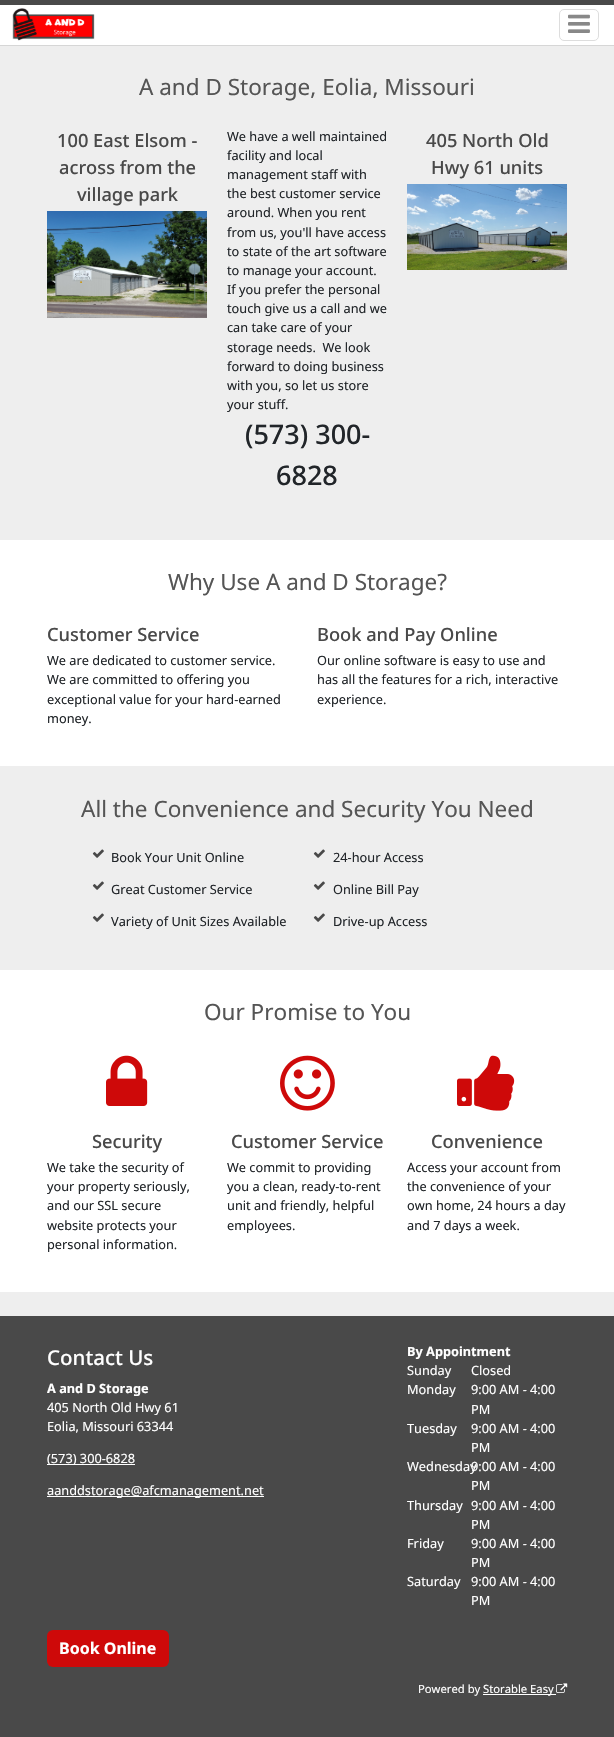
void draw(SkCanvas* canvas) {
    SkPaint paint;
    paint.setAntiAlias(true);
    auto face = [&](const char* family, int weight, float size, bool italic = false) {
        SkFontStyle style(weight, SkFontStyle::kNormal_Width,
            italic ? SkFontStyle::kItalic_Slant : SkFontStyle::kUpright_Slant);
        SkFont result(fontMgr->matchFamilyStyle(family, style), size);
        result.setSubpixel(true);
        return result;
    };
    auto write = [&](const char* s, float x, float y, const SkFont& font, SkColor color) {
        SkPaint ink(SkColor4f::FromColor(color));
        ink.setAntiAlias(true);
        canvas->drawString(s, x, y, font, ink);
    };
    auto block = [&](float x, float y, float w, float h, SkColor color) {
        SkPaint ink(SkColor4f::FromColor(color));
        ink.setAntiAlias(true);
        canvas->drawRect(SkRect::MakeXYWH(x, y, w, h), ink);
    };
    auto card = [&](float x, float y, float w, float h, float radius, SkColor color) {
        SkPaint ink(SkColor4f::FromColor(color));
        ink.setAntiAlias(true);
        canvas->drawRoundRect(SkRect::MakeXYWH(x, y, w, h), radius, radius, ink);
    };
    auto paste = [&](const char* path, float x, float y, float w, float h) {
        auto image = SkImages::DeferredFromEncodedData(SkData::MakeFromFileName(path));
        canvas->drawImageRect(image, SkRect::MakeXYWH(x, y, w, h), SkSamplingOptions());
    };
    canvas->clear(SkColorSetRGB(238, 238, 238));
    block(0, 45, 614, 1, SkColorSetRGB(214, 214, 214));
    block(0, 5, 614, 40, SK_ColorWHITE);
    block(0, 0, 614, 5, SkColorSetRGB(73, 73, 73));
    paste("pic1.png", 12, 8, 83, 33);
    paint.setStyle(SkPaint::kStroke_Style);
    paint.setStrokeWidth(1);
    paint.setColor(SkColorSetRGB(221, 221, 221));
    canvas->drawRoundRect(SkRect::MakeXYWH(559.5f, 9.5f, 39, 31), 4.5f, 4.5f, paint);
    paste("pic2.png", 568, 14, 22, 19);
    auto kFont1 = face("Noto Sans", 400, 22.5f);
    write("A and D Storage, Eolia, Missouri", 139, 95, kFont1, SkColorSetRGB(85, 85, 85));
    auto kFont2 = face("Noto Sans", 500, 18.25f);
    write("100 East Elsom -", 57, 147, kFont2, SkColorSetRGB(73, 73, 73));
    write("across from the", 59, 174, kFont2, SkColorSetRGB(73, 73, 73));
    write("village park", 77, 201, kFont2, SkColorSetRGB(73, 73, 73));
    paste("pic3.png", 47, 211, 160, 107);
    auto kFont3 = face("Noto Sans", 400, 12.75f);
    write("We have a well maintained", 227, 141, kFont3, SkColorSetRGB(33, 37, 41));
    write("facility and local", 227, 160, kFont3, SkColorSetRGB(33, 37, 41));
    write("management staff with", 227, 179, kFont3, SkColorSetRGB(33, 37, 41));
    write("the best customer service", 227, 198, kFont3, SkColorSetRGB(33, 37, 41));
    write("around. When you rent", 227, 217, kFont3, SkColorSetRGB(33, 37, 41));
    write("from us, you'll have access", 227, 237, kFont3, SkColorSetRGB(33, 37, 41));
    write("to state of the art software", 227, 256, kFont3, SkColorSetRGB(33, 37, 41));
    write("to manage your account.", 227, 275, kFont3, SkColorSetRGB(33, 37, 41));
    write("If you prefer the personal", 227, 294, kFont3, SkColorSetRGB(33, 37, 41));
    write("touch give us a call and we", 227, 313, kFont3, SkColorSetRGB(33, 37, 41));
    write("can take care of your", 227, 332, kFont3, SkColorSetRGB(33, 37, 41));
    write("storage needs.  We look", 227, 352, kFont3, SkColorSetRGB(33, 37, 41));
    write("forward to doing business", 227, 371, kFont3, SkColorSetRGB(33, 37, 41));
    write("with you, so let us store", 227, 390, kFont3, SkColorSetRGB(33, 37, 41));
    write("your stuff.", 227, 409, kFont3, SkColorSetRGB(33, 37, 41));
    auto kFont4 = face("Noto Sans", 500, 27);
    write("(573) 300-", 245, 444, kFont4, SkColorSetRGB(33, 37, 41));
    write("6828", 276, 485, kFont4, SkColorSetRGB(33, 37, 41));
    write("405 North Old", 426, 147, kFont2, SkColorSetRGB(73, 73, 73));
    write("Hwy 61 units", 431, 174, kFont2, SkColorSetRGB(73, 73, 73));
    paste("pic4.png", 407, 184, 160, 86);
    block(0, 540, 614, 226, SK_ColorWHITE);
    write("Why Use A and D Storage?", 168, 590, kFont1, SkColorSetRGB(85, 85, 85));
    write("Customer Service", 47, 641, kFont2, SkColorSetRGB(73, 73, 73));
    write("We are dedicated to customer service.", 47, 665, kFont3, SkColorSetRGB(33, 37, 41));
    write("We are committed to offering you", 47, 684, kFont3, SkColorSetRGB(33, 37, 41));
    write("exceptional value for your hard-earned", 47, 704, kFont3, SkColorSetRGB(33, 37, 41));
    write("money.", 47, 723, kFont3, SkColorSetRGB(33, 37, 41));
    write("Book and Pay Online", 317, 641, kFont2, SkColorSetRGB(73, 73, 73));
    write("Our online software is easy to use and", 317, 665, kFont3, SkColorSetRGB(33, 37, 41));
    write("has all the features for a rich, interactive", 317, 684, kFont3, SkColorSetRGB(33, 37, 41));
    write("experience.", 317, 704, kFont3, SkColorSetRGB(33, 37, 41));
    write("All the Convenience and Security You Need", 81, 817, kFont1, SkColorSetRGB(85, 85, 85));
    paste("pic5.png", 92, 849, 12, 9);
    write("Book Your Unit Online", 111, 862, kFont3, SkColorSetRGB(33, 37, 41));
    paste("pic5.png", 313, 849, 12, 9);
    write("24-hour Access", 333, 862, kFont3, SkColorSetRGB(33, 37, 41));
    paste("pic5.png", 92, 881, 12, 9);
    write("Great Customer Service", 111, 894, kFont3, SkColorSetRGB(33, 37, 41));
    paste("pic5.png", 313, 881, 12, 9);
    write("Online Bill Pay", 333, 894, kFont3, SkColorSetRGB(33, 37, 41));
    paste("pic5.png", 92, 913, 12, 9);
    write("Variety of Unit Sizes Available", 111, 926, kFont3, SkColorSetRGB(33, 37, 41));
    paste("pic5.png", 313, 913, 12, 9);
    write("Drive-up Access", 333, 926, kFont3, SkColorSetRGB(33, 37, 41));
    block(0, 970, 614, 322, SK_ColorWHITE);
    write("Our Promise to You", 204, 1020, kFont1, SkColorSetRGB(85, 85, 85));
    paste("pic6.png", 106, 1055, 42, 51);
    write("Security", 92, 1148, kFont2, SkColorSetRGB(73, 73, 73));
    write("We take the security of", 47, 1172, kFont3, SkColorSetRGB(33, 37, 41));
    write("your property seriously,", 47, 1191, kFont3, SkColorSetRGB(33, 37, 41));
    write("and our SSL secure", 47, 1210, kFont3, SkColorSetRGB(33, 37, 41));
    write("website protects your", 47, 1230, kFont3, SkColorSetRGB(33, 37, 41));
    write("personal information.", 47, 1249, kFont3, SkColorSetRGB(33, 37, 41));
    paste("pic7.png", 280, 1055, 55, 56);
    write("Customer Service", 231, 1148, kFont2, SkColorSetRGB(73, 73, 73));
    write("We commit to providing", 227, 1172, kFont3, SkColorSetRGB(33, 37, 41));
    write("you a clean, ready-to-rent", 227, 1191, kFont3, SkColorSetRGB(33, 37, 41));
    write("unit and friendly, helpful", 227, 1210, kFont3, SkColorSetRGB(33, 37, 41));
    write("employees.", 227, 1230, kFont3, SkColorSetRGB(33, 37, 41));
    paste("pic8.png", 457, 1055, 58, 56);
    write("Convenience", 431, 1148, kFont2, SkColorSetRGB(73, 73, 73));
    write("Access your account from", 407, 1172, kFont3, SkColorSetRGB(33, 37, 41));
    write("the convenience of your", 407, 1191, kFont3, SkColorSetRGB(33, 37, 41));
    write("own home, 24 hours a day", 407, 1210, kFont3, SkColorSetRGB(33, 37, 41));
    write("and 7 days a week.", 407, 1230, kFont3, SkColorSetRGB(33, 37, 41));
    block(0, 1316, 614, 421, SkColorSetRGB(73, 73, 73));
    auto kFont5 = face("Noto Sans", 500, 20.5f);
    write("Contact Us", 47, 1365, kFont5, SK_ColorWHITE);
    auto kFont6 = face("Noto Sans", 700, 12.75f);
    write("A and D Storage", 47, 1393, kFont6, SK_ColorWHITE);
    write("405 North Old Hwy 61", 47, 1412, kFont3, SK_ColorWHITE);
    write("Eolia, Missouri 63344", 47, 1431, kFont3, SK_ColorWHITE);
    block(47, 1464, 88, 1, SK_ColorWHITE);
    write("(573) 300-6828", 47, 1463, kFont3, SK_ColorWHITE);
    block(47, 1496, 217, 1, SK_ColorWHITE);
    write("aanddstorage@afcmanagement.net", 47, 1495, kFont3, SK_ColorWHITE);
    write("By Appointment", 407, 1356, kFont6, SK_ColorWHITE);
    write("Sunday", 407, 1375, kFont3, SK_ColorWHITE);
    write("Closed", 471, 1375, kFont3, SK_ColorWHITE);
    write("Monday", 407, 1394, kFont3, SK_ColorWHITE);
    write("9:00 AM - 4:00", 471, 1394, kFont3, SK_ColorWHITE);
    write("PM", 471, 1414, kFont3, SK_ColorWHITE);
    write("Tuesday", 407, 1433, kFont3, SK_ColorWHITE);
    write("9:00 AM - 4:00", 471, 1433, kFont3, SK_ColorWHITE);
    write("PM", 471, 1452, kFont3, SK_ColorWHITE);
    write("Wednesday", 407, 1471, kFont3, SK_ColorWHITE);
    write("9:00 AM - 4:00", 471, 1471, kFont3, SK_ColorWHITE);
    write("PM", 471, 1490, kFont3, SK_ColorWHITE);
    write("Thursday", 407, 1510, kFont3, SK_ColorWHITE);
    write("9:00 AM - 4:00", 471, 1510, kFont3, SK_ColorWHITE);
    write("PM", 471, 1529, kFont3, SK_ColorWHITE);
    write("Friday", 407, 1548, kFont3, SK_ColorWHITE);
    write("9:00 AM - 4:00", 471, 1548, kFont3, SK_ColorWHITE);
    write("PM", 471, 1567, kFont3, SK_ColorWHITE);
    write("Saturday", 407, 1586, kFont3, SK_ColorWHITE);
    write("9:00 AM - 4:00", 471, 1586, kFont3, SK_ColorWHITE);
    write("PM", 471, 1605, kFont3, SK_ColorWHITE);
    card(47, 1630, 122, 37, 6, SkColorSetRGB(206, 9, 9));
    auto kFont7 = face("Noto Sans", 700, 16);
    write("Book Online", 59, 1654, kFont7, SK_ColorWHITE);
    auto kFont8 = face("Noto Sans", 400, 11.25f);
    write("Powered by", 418, 1693, kFont8, SK_ColorWHITE);
    block(483, 1694, 73, 1, SK_ColorWHITE);
    write("Storable Easy", 483, 1693, kFont8, SK_ColorWHITE);
    paste("pic9.png", 556, 1683, 12, 10);
}
